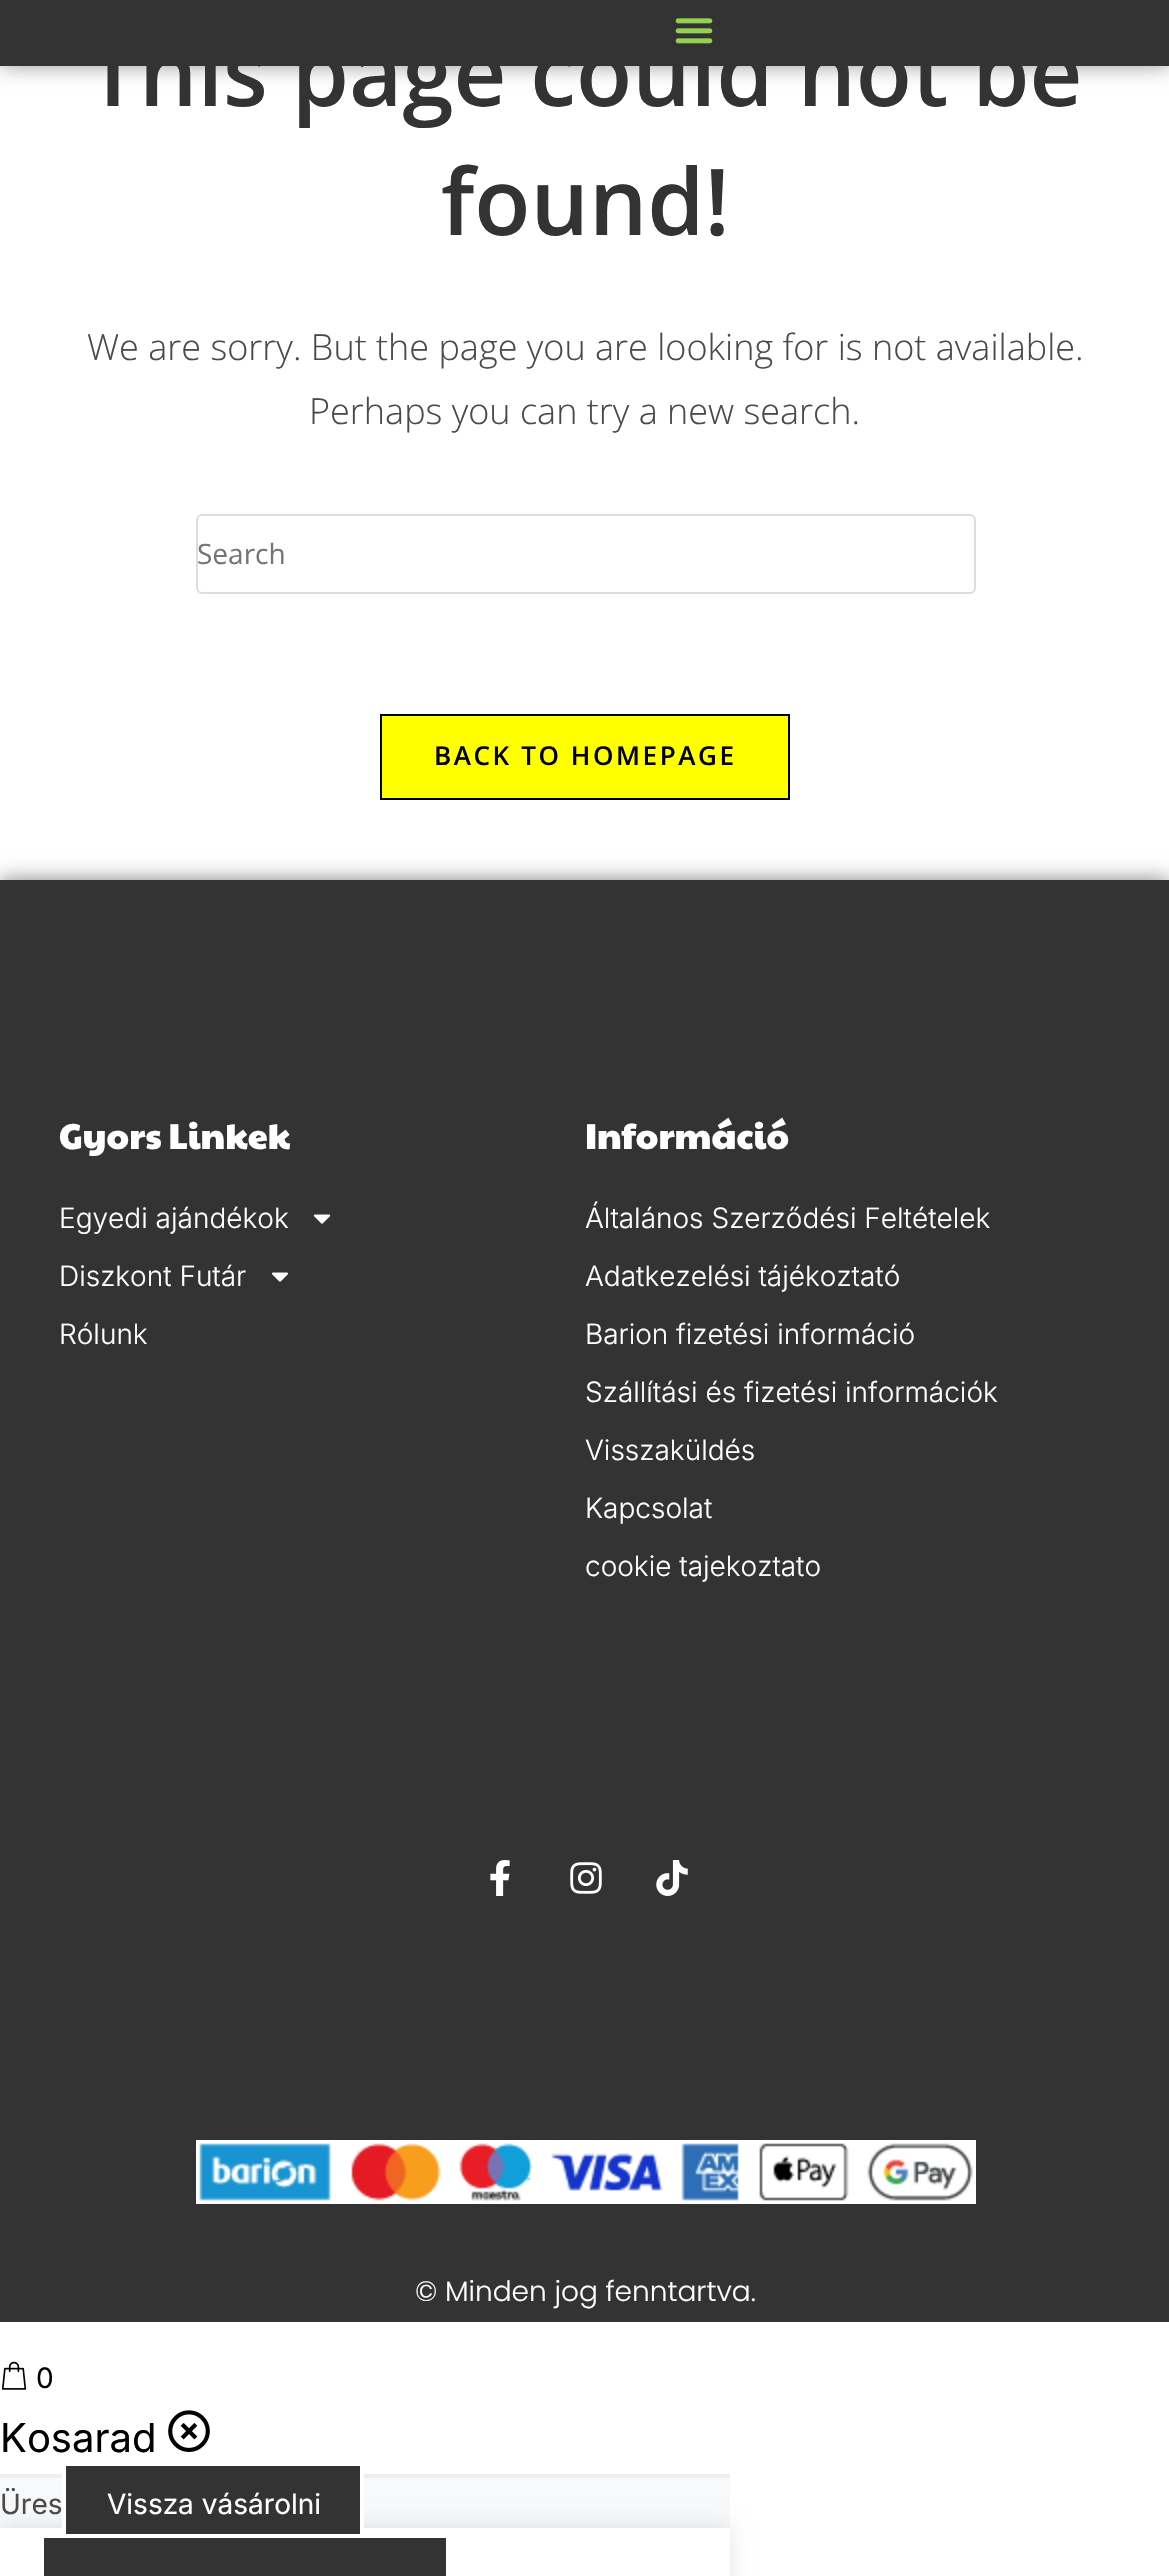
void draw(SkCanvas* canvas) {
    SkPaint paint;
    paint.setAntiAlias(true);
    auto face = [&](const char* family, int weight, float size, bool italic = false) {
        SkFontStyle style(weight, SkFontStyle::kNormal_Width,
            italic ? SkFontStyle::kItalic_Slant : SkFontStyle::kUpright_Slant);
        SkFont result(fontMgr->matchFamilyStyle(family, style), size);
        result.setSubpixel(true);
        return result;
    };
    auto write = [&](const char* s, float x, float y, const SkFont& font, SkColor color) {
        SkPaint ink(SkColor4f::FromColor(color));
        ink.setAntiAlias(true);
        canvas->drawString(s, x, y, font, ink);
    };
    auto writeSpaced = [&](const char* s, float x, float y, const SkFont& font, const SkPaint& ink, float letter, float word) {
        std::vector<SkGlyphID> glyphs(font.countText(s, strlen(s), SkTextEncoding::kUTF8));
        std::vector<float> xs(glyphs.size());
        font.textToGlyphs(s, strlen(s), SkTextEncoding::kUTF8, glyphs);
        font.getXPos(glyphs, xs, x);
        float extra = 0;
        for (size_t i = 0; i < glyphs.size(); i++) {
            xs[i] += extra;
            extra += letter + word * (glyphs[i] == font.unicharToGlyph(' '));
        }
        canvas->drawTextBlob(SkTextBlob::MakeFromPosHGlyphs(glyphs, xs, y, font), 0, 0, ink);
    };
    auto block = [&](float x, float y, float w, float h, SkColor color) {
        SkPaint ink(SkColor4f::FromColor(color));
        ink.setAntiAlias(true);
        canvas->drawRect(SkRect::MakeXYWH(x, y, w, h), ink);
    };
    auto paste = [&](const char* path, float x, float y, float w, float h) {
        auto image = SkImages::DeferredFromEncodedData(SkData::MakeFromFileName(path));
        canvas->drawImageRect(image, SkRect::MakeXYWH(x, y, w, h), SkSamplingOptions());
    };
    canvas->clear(SK_ColorWHITE);
    paint.setColor(SkColorSetARGB(102, 0, 0, 0));
    paint.setMaskFilter(SkMaskFilter::MakeBlur(kNormal_SkBlurStyle, 10));
    canvas->drawRect(SkRect::MakeXYWH(0, 0, 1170, 66), paint);
    paint.setMaskFilter(nullptr);
    block(0, 0, 1169, 66, SkColorSetRGB(51, 51, 51));
    auto kFont1 = face("Open Sans", 600, 92);
    write("This page could not be", 87, 106, kFont1, SkColorSetRGB(51, 51, 51));
    paste("pic1.png", 675, 18, 38, 26);
    write("found!", 441, 235, kFont1, SkColorSetRGB(51, 51, 51));
    auto kFont2 = face("Open Sans", 300, 36);
    write("We are sorry. But the page you are looking for is not available.", 87, 360, kFont2, SkColorSetRGB(74, 74, 74));
    write("Perhaps you can try a new search.", 309, 424, kFont2, SkColorSetRGB(74, 74, 74));
    paint.setStyle(SkPaint::kStroke_Style);
    paint.setStrokeWidth(2);
    paint.setColor(SkColorSetRGB(221, 221, 221));
    canvas->drawRoundRect(SkRect::MakeXYWH(197, 515, 778, 78), 5, 5, paint);
    auto kFont3 = face("Open Sans", 400, 28);
    write("Search", 197, 564, kFont3, SkColorSetRGB(117, 117, 117));
    paint.setStyle(SkPaint::kFill_Style);
    paint.setColor(SkColorSetRGB(255, 255, 0));
    canvas->drawRect(SkRect::MakeXYWH(381, 715, 408, 84), paint);
    paint.setStyle(SkPaint::kStroke_Style);
    paint.setColor(SK_ColorBLACK);
    canvas->drawRect(SkRect::MakeXYWH(381, 715, 408, 84), paint);
    auto kFont4 = face("Open Sans", 600, 26);
    paint.setStyle(SkPaint::kFill_Style);
    writeSpaced("BACK TO HOMEPAGE", 434, 765, kFont4, paint, 2.6f, 0);
    paint.setColor(SkColorSetARGB(128, 0, 0, 0));
    paint.setMaskFilter(SkMaskFilter::MakeBlur(kNormal_SkBlurStyle, 10));
    canvas->drawRect(SkRect::MakeXYWH(0, 880, 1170, 1260), paint);
    paint.setMaskFilter(nullptr);
    block(0, 880, 1169, 1442, SkColorSetRGB(51, 51, 51));
    auto kFont5 = face("Paytone One", 400, 36);
    write("Gyors Linkek", 59, 1149, kFont5, SK_ColorWHITE);
    auto kFont6 = face("Inter", 300, 28);
    write("Egyedi ajándékok", 59, 1228, kFont6, SK_ColorWHITE);
    paste("pic2.png", 313, 1214, 18, 10);
    write("Diszkont Futár", 59, 1286, kFont6, SK_ColorWHITE);
    paste("pic2.png", 271, 1272, 18, 10);
    write("Rólunk", 59, 1344, kFont6, SK_ColorWHITE);
    write("Információ", 585, 1149, kFont5, SK_ColorWHITE);
    write("Általános Szerződési Feltételek", 585, 1228, kFont6, SK_ColorWHITE);
    write("Adatkezelési tájékoztató", 585, 1286, kFont6, SK_ColorWHITE);
    write("Barion fizetési információ", 585, 1344, kFont6, SK_ColorWHITE);
    write("Szállítási és fizetési információk", 585, 1402, kFont6, SK_ColorWHITE);
    write("Visszaküldés", 585, 1460, kFont6, SK_ColorWHITE);
    write("Kapcsolat", 585, 1518, kFont6, SK_ColorWHITE);
    write("cookie tajekoztato", 585, 1576, kFont6, SK_ColorWHITE);
    paste("pic3.png", 490, 1860, 20, 36);
    paste("pic4.png", 570, 1862, 32, 32);
    paste("pic5.png", 656, 1860, 32, 36);
    paste("pic6.png", 196, 2140, 780, 64);
    auto kFont7 = face("Poppins", 300, 28);
    write("© Minden jog fenntartva.", 415, 2301, kFont7, SK_ColorWHITE);
    block(0, 2474, 730, 4, SkColorSetRGB(238, 238, 238));
    paste("pic7.png", 1, 2361, 26, 29);
    auto kFont8 = face("Inter", 400, 28);
    write("0", 36, 2388, kFont8, SK_ColorBLACK);
    auto kFont9 = face("Inter", 400, 40);
    write("Kosarad", 0, 2452, kFont9, SK_ColorBLACK);
    paste("pic8.png", 168, 2410, 42, 42);
    block(0, 2478, 730, 50, SkColorSetRGB(248, 249, 250));
    canvas->save();
    canvas->clipPath(SkPathBuilder(SkPathFillType::kEvenOdd).moveTo(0, 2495).lineTo(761, 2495).lineTo(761, 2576).lineTo(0, 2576).close().moveTo(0, 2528).lineTo(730, 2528).lineTo(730, 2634).lineTo(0, 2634).close().detach(), true);
    paint.setColor(SkColorSetARGB(26, 0, 0, 0));
    paint.setMaskFilter(SkMaskFilter::MakeBlur(kNormal_SkBlurStyle, 10));
    canvas->drawRect(SkRect::MakeXYWH(0, 2526, 730, 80), paint);
    paint.setMaskFilter(nullptr);
    canvas->restore();
    write("Üres", 0, 2514, kFont8, SkColorSetRGB(74, 74, 74));
    block(66, 2466, 294, 68, SkColorSetRGB(51, 51, 51));
    paint.setStyle(SkPaint::kStroke_Style);
    paint.setStrokeWidth(4);
    paint.setColor(SK_ColorWHITE);
    canvas->drawRect(SkRect::MakeXYWH(64, 2464, 298, 78), paint);
    write("Vissza vásárolni", 107, 2514, kFont8, SK_ColorWHITE);
    block(44, 2538, 402, 38, SkColorSetRGB(51, 51, 51));
}
